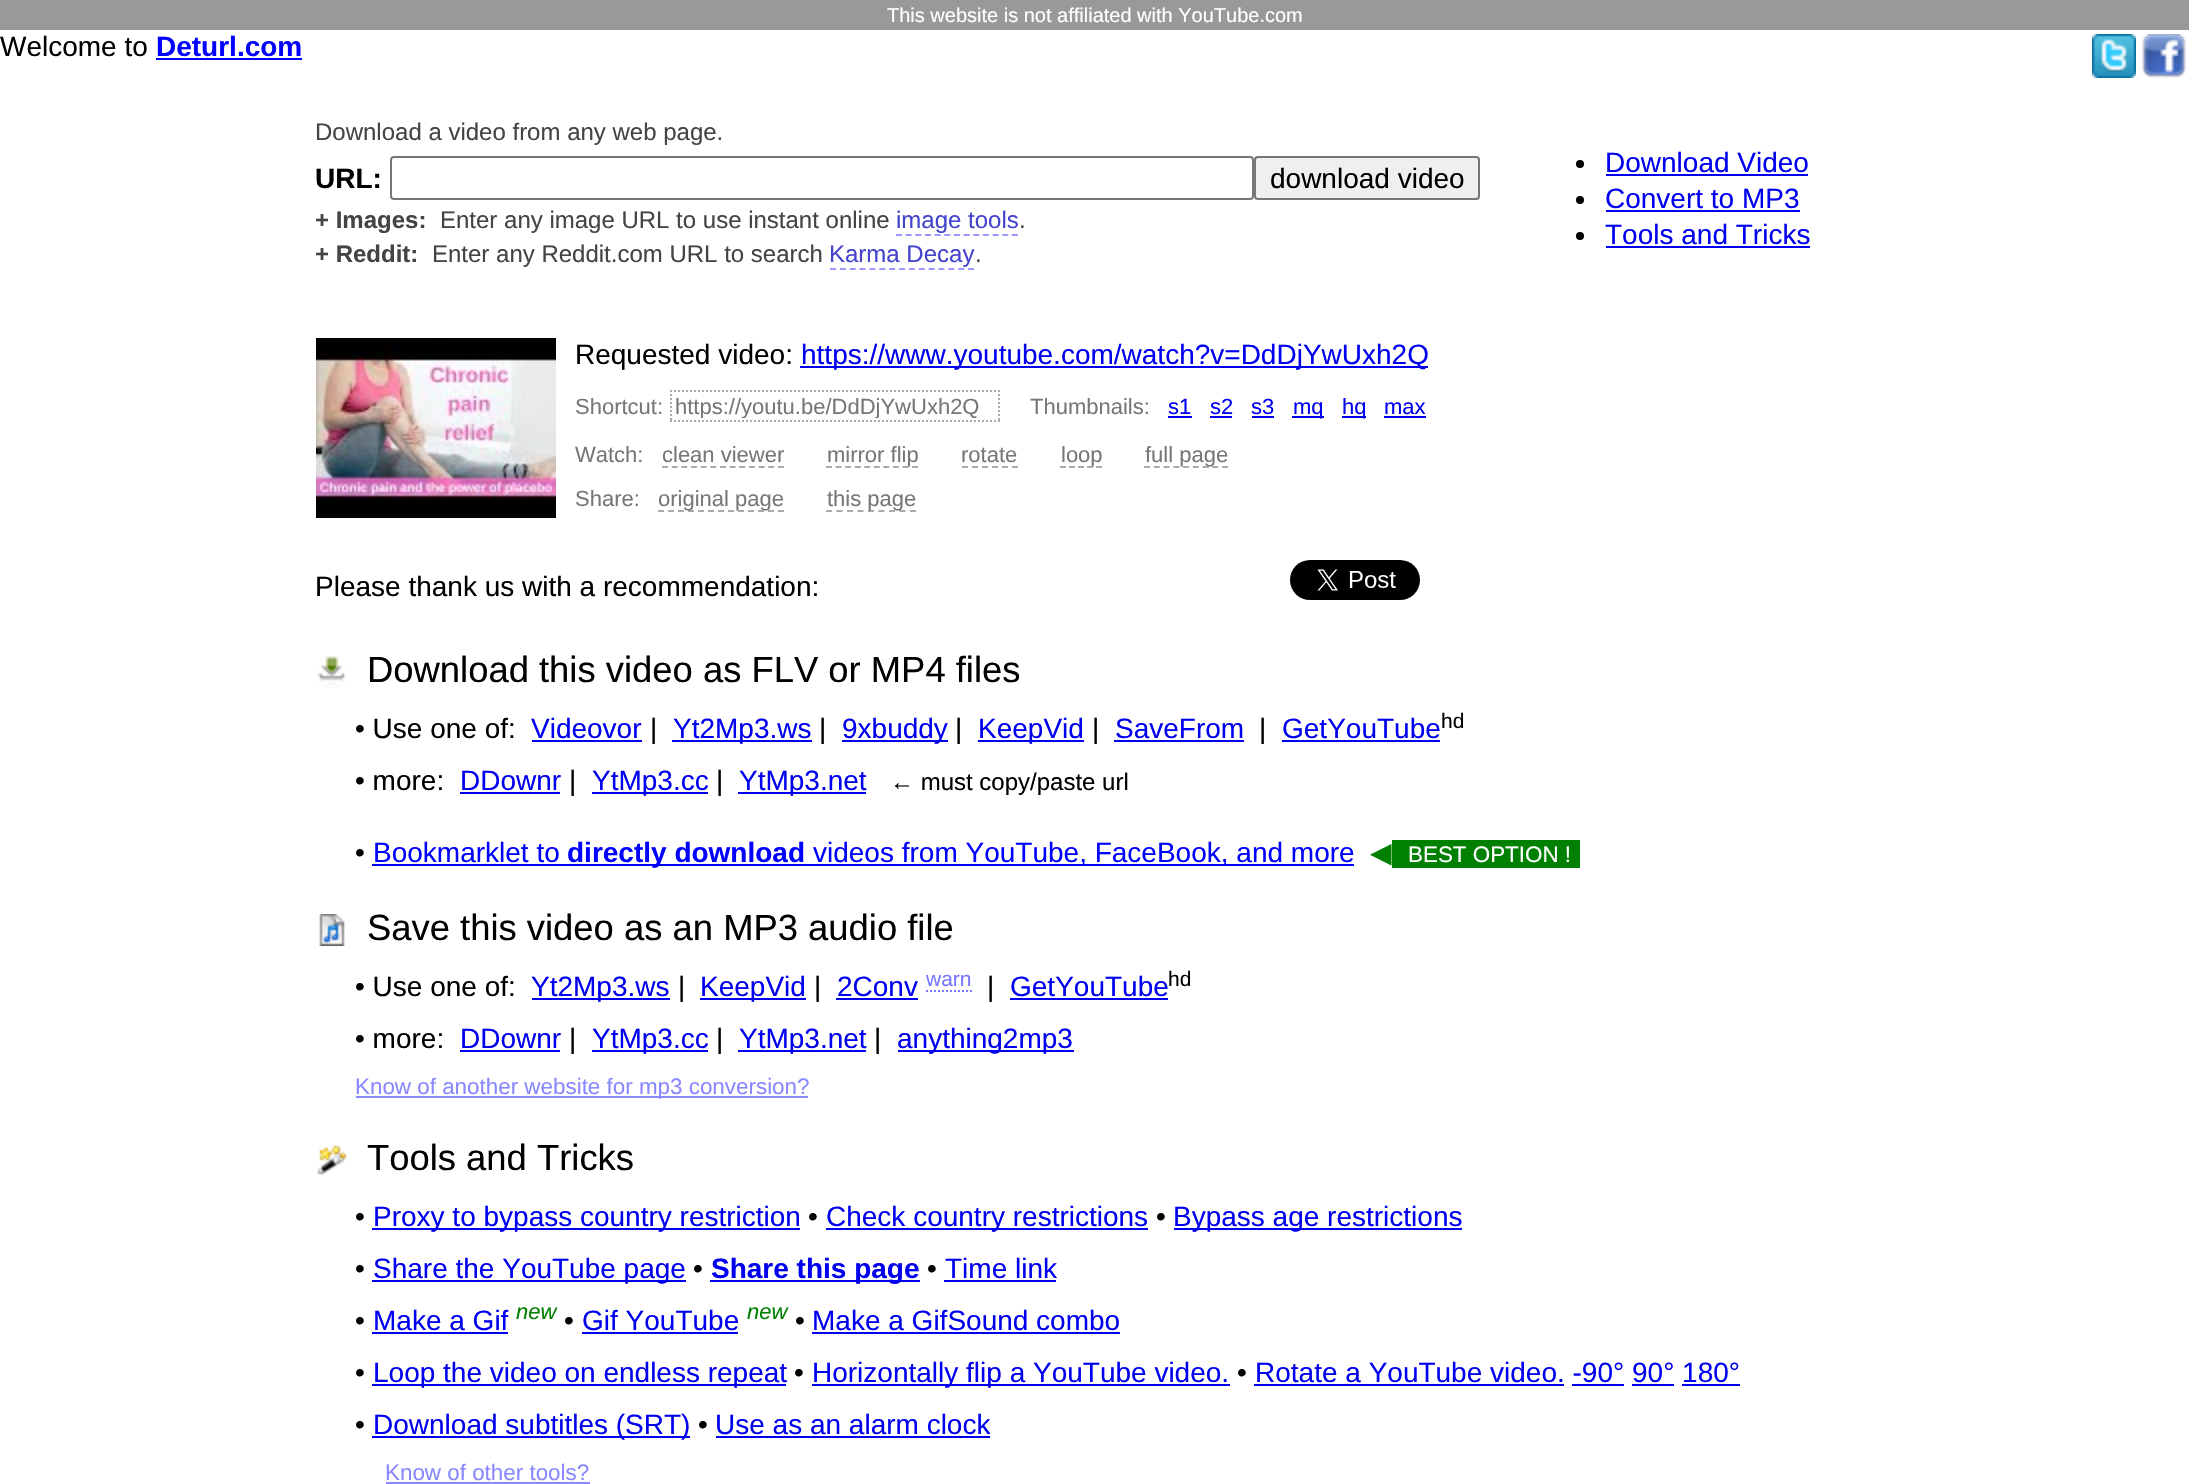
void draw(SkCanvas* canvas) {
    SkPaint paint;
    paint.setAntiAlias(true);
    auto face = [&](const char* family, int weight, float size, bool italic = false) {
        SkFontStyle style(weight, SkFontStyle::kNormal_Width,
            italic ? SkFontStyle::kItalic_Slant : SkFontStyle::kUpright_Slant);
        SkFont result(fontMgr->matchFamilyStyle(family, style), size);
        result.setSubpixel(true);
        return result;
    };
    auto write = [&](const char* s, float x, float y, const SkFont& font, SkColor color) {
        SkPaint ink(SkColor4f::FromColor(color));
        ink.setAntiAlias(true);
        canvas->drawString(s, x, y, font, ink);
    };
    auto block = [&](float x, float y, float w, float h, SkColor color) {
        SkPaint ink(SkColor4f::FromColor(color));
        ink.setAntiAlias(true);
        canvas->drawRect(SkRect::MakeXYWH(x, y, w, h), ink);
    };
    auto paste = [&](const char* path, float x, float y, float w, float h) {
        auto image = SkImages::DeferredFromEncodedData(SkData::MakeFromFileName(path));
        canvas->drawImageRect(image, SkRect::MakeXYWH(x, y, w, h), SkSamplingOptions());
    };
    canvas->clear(SK_ColorWHITE);
    block(0, 0, 2189, 30, SkColorSetRGB(153, 153, 153));
    auto kFont1 = face("Liberation Sans", 400, 20);
    write("This website is not affiliated with YouTube.com", 887, 22, kFont1, SK_ColorWHITE);
    auto kFont2 = face("Liberation Sans", 400, 28);
    write("Welcome to", 0, 56, kFont2, SK_ColorBLACK);
    auto kFont3 = face("Liberation Sans", 700, 28);
    write("Deturl.com", 156, 56, kFont3, SkColorSetRGB(0, 0, 255));
    block(156, 58, 146, 2, SkColorSetRGB(0, 0, 255));
    paste("pic1.png", 2092, 34, 44, 44);
    paste("pic2.png", 2142, 34, 44, 44);
    auto kFont4 = face("Liberation Sans", 400, 24);
    write("Download a video from any web page.", 315, 140, kFont4, SkColorSetRGB(68, 68, 68));
    write("URL:", 315, 188, kFont3, SK_ColorBLACK);
    paint.setStyle(SkPaint::kStroke_Style);
    paint.setStrokeWidth(2);
    paint.setColor(SkColorSetRGB(118, 118, 118));
    canvas->drawRoundRect(SkRect::MakeXYWH(391, 157, 862, 42), 3, 3, paint);
    paint.setStyle(SkPaint::kFill_Style);
    paint.setColor(SkColorSetRGB(239, 239, 239));
    canvas->drawRoundRect(SkRect::MakeXYWH(1255, 157, 224, 42), 3, 3, paint);
    paint.setStyle(SkPaint::kStroke_Style);
    paint.setColor(SkColorSetRGB(118, 118, 118));
    canvas->drawRoundRect(SkRect::MakeXYWH(1255, 157, 224, 42), 3, 3, paint);
    write("download video", 1270, 188, kFont2, SK_ColorBLACK);
    auto kFont5 = face("Liberation Sans", 700, 24);
    write("+ Images:", 315, 228, kFont5, SkColorSetRGB(68, 68, 68));
    write("Enter any image URL to use instant online", 440, 228, kFont4, SkColorSetRGB(68, 68, 68));
    write("image tools", 896, 228, kFont4, SkColorSetRGB(68, 68, 204));
    paint.setColor(SkColorSetRGB(153, 153, 255));
    paint.setPathEffect(SkDashPathEffect::Make({{6, 3.66f}}, 0));
    canvas->drawPath(SkPathBuilder().moveTo(896, 235).lineTo(1018, 235).detach(), paint);
    paint.setPathEffect(nullptr);
    write(".", 1019, 228, kFont4, SkColorSetRGB(68, 68, 68));
    write("+ Reddit:", 315, 262, kFont5, SkColorSetRGB(68, 68, 68));
    write("Enter any Reddit.com URL to search", 432, 262, kFont4, SkColorSetRGB(68, 68, 68));
    write("Karma Decay", 829, 262, kFont4, SkColorSetRGB(68, 68, 204));
    paint.setPathEffect(SkDashPathEffect::Make({{6, 3.86f}}, 0));
    canvas->drawPath(SkPathBuilder().moveTo(830, 269).lineTo(974, 269).detach(), paint);
    paint.setPathEffect(nullptr);
    write(".", 975, 262, kFont4, SkColorSetRGB(68, 68, 68));
    paint.setStyle(SkPaint::kFill_Style);
    paint.setColor(SK_ColorBLACK);
    canvas->drawCircle(1580, 164, 4, paint);
    write("Download Video", 1605, 172, kFont2, SkColorSetRGB(0, 0, 238));
    block(1606, 174, 202, 2, SkColorSetRGB(0, 0, 238));
    canvas->drawCircle(1580, 200, 4, paint);
    write("Convert to MP3", 1605, 208, kFont2, SkColorSetRGB(0, 0, 238));
    block(1606, 210, 194, 2, SkColorSetRGB(0, 0, 238));
    canvas->drawCircle(1580, 236, 4, paint);
    write("Tools and Tricks", 1605, 244, kFont2, SkColorSetRGB(0, 0, 238));
    block(1606, 246, 204, 2, SkColorSetRGB(0, 0, 238));
    paste("pic3.png", 316, 338, 240, 180);
    write("Requested video:", 575, 364, kFont2, SK_ColorBLACK);
    block(800, 366, 628, 2, SkColorSetRGB(0, 0, 238));
    write("https://www.youtube.com/watch?v=DdDjYwUxh2Q", 801, 364, kFont2, SkColorSetRGB(0, 0, 238));
    auto kFont6 = face("Liberation Sans", 400, 22);
    write("Shortcut:", 575, 414, kFont6, SkColorSetRGB(119, 119, 119));
    paint.setStyle(SkPaint::kStroke_Style);
    paint.setColor(SkColorSetRGB(170, 170, 170));
    paint.setPathEffect(SkDashPathEffect::Make({{2, 2}}, 0));
    canvas->drawPath(SkPathBuilder().moveTo(670, 391).lineTo(1000, 391).detach(), paint);
    paint.setPathEffect(nullptr);
    paint.setPathEffect(SkDashPathEffect::Make({{2, 2}}, 0));
    canvas->drawPath(SkPathBuilder().moveTo(999, 390).lineTo(999, 422).detach(), paint);
    paint.setPathEffect(nullptr);
    paint.setPathEffect(SkDashPathEffect::Make({{2, 2}}, 0));
    canvas->drawPath(SkPathBuilder().moveTo(670, 421).lineTo(1000, 421).detach(), paint);
    paint.setPathEffect(nullptr);
    paint.setPathEffect(SkDashPathEffect::Make({{2, 2}}, 0));
    canvas->drawPath(SkPathBuilder().moveTo(671, 390).lineTo(671, 422).detach(), paint);
    paint.setPathEffect(nullptr);
    canvas->save();
    canvas->clipRect(SkRect::MakeXYWH(676, 394, 318, 24));
    write("https://youtu.be/DdDjYwUxh2Q", 675, 414, kFont6, SkColorSetRGB(119, 119, 119));
    canvas->restore();
    write("Thumbnails:", 1030, 414, kFont6, SkColorSetRGB(119, 119, 119));
    write("s1", 1168, 414, kFont6, SkColorSetRGB(0, 0, 238));
    block(1168, 416, 24, 2, SkColorSetRGB(0, 0, 238));
    write("s2", 1210, 414, kFont6, SkColorSetRGB(0, 0, 238));
    block(1210, 416, 22, 2, SkColorSetRGB(0, 0, 238));
    write("s3", 1251, 414, kFont6, SkColorSetRGB(0, 0, 238));
    block(1252, 416, 22, 2, SkColorSetRGB(0, 0, 238));
    block(1292, 416, 32, 2, SkColorSetRGB(0, 0, 238));
    write("mq", 1293, 414, kFont6, SkColorSetRGB(0, 0, 238));
    block(1342, 416, 24, 2, SkColorSetRGB(0, 0, 238));
    write("hq", 1342, 414, kFont6, SkColorSetRGB(0, 0, 238));
    write("max", 1384, 414, kFont6, SkColorSetRGB(0, 0, 238));
    block(1384, 416, 42, 2, SkColorSetRGB(0, 0, 238));
    write("Watch:", 575, 462, kFont6, SkColorSetRGB(119, 119, 119));
    write("clean viewer", 662, 462, kFont6, SkColorSetRGB(119, 119, 119));
    paint.setPathEffect(SkDashPathEffect::Make({{6, 3.66f}}, 0));
    canvas->drawPath(SkPathBuilder().moveTo(662, 467).lineTo(784, 467).detach(), paint);
    paint.setPathEffect(nullptr);
    paint.setPathEffect(SkDashPathEffect::Make({{6, 3.56f}}, 0));
    canvas->drawPath(SkPathBuilder().moveTo(826, 467).lineTo(918, 467).detach(), paint);
    paint.setPathEffect(nullptr);
    write("mirror flip", 827, 462, kFont6, SkColorSetRGB(119, 119, 119));
    write("rotate", 961, 462, kFont6, SkColorSetRGB(119, 119, 119));
    paint.setPathEffect(SkDashPathEffect::Make({{6, 4}}, 0));
    canvas->drawPath(SkPathBuilder().moveTo(962, 467).lineTo(1018, 467).detach(), paint);
    paint.setPathEffect(nullptr);
    paint.setPathEffect(SkDashPathEffect::Make({{6, 3}}, 0));
    canvas->drawPath(SkPathBuilder().moveTo(1060, 467).lineTo(1102, 467).detach(), paint);
    paint.setPathEffect(nullptr);
    write("loop", 1061, 462, kFont6, SkColorSetRGB(119, 119, 119));
    paint.setPathEffect(SkDashPathEffect::Make({{6, 3.76f}}, 0));
    canvas->drawPath(SkPathBuilder().moveTo(1144, 467).lineTo(1228, 467).detach(), paint);
    paint.setPathEffect(nullptr);
    write("full page", 1145, 462, kFont6, SkColorSetRGB(119, 119, 119));
    write("Share:", 575, 506, kFont6, SkColorSetRGB(119, 119, 119));
    paint.setPathEffect(SkDashPathEffect::Make({{6, 4}}, 0));
    canvas->drawPath(SkPathBuilder().moveTo(658, 511).lineTo(784, 511).detach(), paint);
    paint.setPathEffect(nullptr);
    write("original page", 658, 506, kFont6, SkColorSetRGB(119, 119, 119));
    paint.setPathEffect(SkDashPathEffect::Make({{6, 4.5f}}, 0));
    canvas->drawPath(SkPathBuilder().moveTo(826, 511).lineTo(916, 511).detach(), paint);
    paint.setPathEffect(nullptr);
    write("this page", 827, 506, kFont6, SkColorSetRGB(119, 119, 119));
    write("Please thank us with a recommendation:", 315, 596, kFont2, SK_ColorBLACK);
    paste("pic4.png", 1290, 560, 130, 40);
    paste("pic5.png", 317, 656, 29, 32);
    auto kFont7 = face("Liberation Sans", 400, 36.4f);
    write("Download this video as FLV or MP4 files", 367, 682, kFont7, SK_ColorBLACK);
    write("• Use one of:", 355, 738, kFont2, SK_ColorBLACK);
    write("Videovor", 531, 738, kFont2, SkColorSetRGB(0, 0, 238));
    block(532, 740, 110, 2, SkColorSetRGB(0, 0, 238));
    write("|", 650, 738, kFont2, SK_ColorBLACK);
    block(672, 740, 140, 2, SkColorSetRGB(0, 0, 238));
    write("Yt2Mp3.ws", 673, 738, kFont2, SkColorSetRGB(0, 0, 238));
    write("|", 819, 738, kFont2, SK_ColorBLACK);
    block(842, 740, 106, 2, SkColorSetRGB(0, 0, 238));
    write("9xbuddy", 842, 738, kFont2, SkColorSetRGB(0, 0, 238));
    write("|", 955, 738, kFont2, SK_ColorBLACK);
    block(978, 740, 106, 2, SkColorSetRGB(0, 0, 238));
    write("KeepVid", 978, 738, kFont2, SkColorSetRGB(0, 0, 238));
    write("|", 1092, 738, kFont2, SK_ColorBLACK);
    write("SaveFrom", 1115, 738, kFont2, SkColorSetRGB(0, 0, 238));
    block(1114, 740, 130, 2, SkColorSetRGB(0, 0, 238));
    write("|", 1259, 738, kFont2, SK_ColorBLACK);
    write("GetYouTube", 1282, 738, kFont2, SkColorSetRGB(0, 0, 238));
    block(1282, 740, 158, 2, SkColorSetRGB(0, 0, 238));
    auto kFont8 = face("Liberation Sans", 400, 21);
    write("hd", 1441, 728, kFont8, SK_ColorBLACK);
    write("• more:", 355, 790, kFont2, SK_ColorBLACK);
    write("DDownr", 460, 790, kFont2, SkColorSetRGB(0, 0, 238));
    block(460, 792, 100, 2, SkColorSetRGB(0, 0, 238));
    write("|", 569, 790, kFont2, SK_ColorBLACK);
    block(592, 792, 116, 2, SkColorSetRGB(0, 0, 238));
    write("YtMp3.cc", 592, 790, kFont2, SkColorSetRGB(0, 0, 238));
    write("|", 716, 790, kFont2, SK_ColorBLACK);
    block(738, 792, 128, 2, SkColorSetRGB(0, 0, 238));
    write("YtMp3.net", 739, 790, kFont2, SkColorSetRGB(0, 0, 238));
    write("← must copy/paste url", 890, 790, kFont4, SK_ColorBLACK);
    write("•", 355, 862, kFont2, SK_ColorBLACK);
    write("Bookmarklet to", 373, 862, kFont2, SkColorSetRGB(0, 0, 255));
    block(372, 864, 982, 2, SkColorSetRGB(0, 0, 255));
    write("directly download", 567, 862, kFont3, SkColorSetRGB(0, 0, 255));
    write("videos from YouTube, FaceBook, and more", 813, 862, kFont2, SkColorSetRGB(0, 0, 255));
    auto kFont9 = face("DejaVu Sans", 400, 28);
    write("◀", 1370, 862, kFont9, SkColorSetRGB(0, 128, 0));
    block(1392, 840, 188, 28, SkColorSetRGB(0, 128, 0));
    auto kFont10 = face("Liberation Sans", 400, 22.4f);
    write("BEST OPTION !", 1408, 862, kFont10, SK_ColorWHITE);
    paste("pic6.png", 319, 914, 26, 32);
    write("Save this video as an MP3 audio file", 367, 940, kFont7, SK_ColorBLACK);
    write("• Use one of:", 355, 996, kFont2, SK_ColorBLACK);
    block(532, 998, 138, 2, SkColorSetRGB(0, 0, 238));
    write("Yt2Mp3.ws", 531, 996, kFont2, SkColorSetRGB(0, 0, 238));
    write("|", 678, 996, kFont2, SK_ColorBLACK);
    block(700, 998, 106, 2, SkColorSetRGB(0, 0, 238));
    write("KeepVid", 700, 996, kFont2, SkColorSetRGB(0, 0, 238));
    write("|", 814, 996, kFont2, SK_ColorBLACK);
    write("2Conv", 837, 996, kFont2, SkColorSetRGB(0, 0, 238));
    block(836, 998, 82, 2, SkColorSetRGB(0, 0, 238));
    write("warn", 926, 986, kFont8, SkColorSetRGB(119, 119, 255));
    paint.setColor(SkColorSetRGB(119, 119, 255));
    paint.setPathEffect(SkDashPathEffect::Make({{2, 2}}, 0));
    canvas->drawPath(SkPathBuilder().moveTo(926, 991).lineTo(972, 991).detach(), paint);
    paint.setPathEffect(nullptr);
    write("|", 987, 996, kFont2, SK_ColorBLACK);
    write("GetYouTube", 1010, 996, kFont2, SkColorSetRGB(0, 0, 238));
    block(1010, 998, 158, 2, SkColorSetRGB(0, 0, 238));
    write("hd", 1168, 986, kFont8, SK_ColorBLACK);
    write("• more:", 355, 1048, kFont2, SK_ColorBLACK);
    write("DDownr", 460, 1048, kFont2, SkColorSetRGB(0, 0, 238));
    block(460, 1050, 100, 2, SkColorSetRGB(0, 0, 238));
    write("|", 569, 1048, kFont2, SK_ColorBLACK);
    block(592, 1050, 116, 2, SkColorSetRGB(0, 0, 238));
    write("YtMp3.cc", 592, 1048, kFont2, SkColorSetRGB(0, 0, 238));
    write("|", 716, 1048, kFont2, SK_ColorBLACK);
    block(738, 1050, 128, 2, SkColorSetRGB(0, 0, 238));
    write("YtMp3.net", 739, 1048, kFont2, SkColorSetRGB(0, 0, 238));
    write("|", 874, 1048, kFont2, SK_ColorBLACK);
    block(898, 1050, 176, 2, SkColorSetRGB(0, 0, 238));
    write("anything2mp3", 897, 1048, kFont2, SkColorSetRGB(0, 0, 238));
    block(356, 1096, 452, 2, SkColorSetRGB(136, 136, 255));
    write("Know of another website for mp3 conversion?", 355, 1094, kFont10, SkColorSetRGB(136, 136, 255));
    paste("pic7.png", 317, 1145, 30, 30);
    write("Tools and Tricks", 367, 1170, kFont7, SK_ColorBLACK);
    write("•", 355, 1226, kFont2, SK_ColorBLACK);
    block(372, 1228, 428, 2, SkColorSetRGB(0, 0, 238));
    write("Proxy to bypass country restriction", 373, 1226, kFont2, SkColorSetRGB(0, 0, 238));
    write("•", 808, 1226, kFont2, SK_ColorBLACK);
    block(826, 1228, 322, 2, SkColorSetRGB(0, 0, 238));
    write("Check country restrictions", 826, 1226, kFont2, SkColorSetRGB(0, 0, 238));
    write("•", 1156, 1226, kFont2, SK_ColorBLACK);
    block(1174, 1228, 288, 2, SkColorSetRGB(0, 0, 238));
    write("Bypass age restrictions", 1173, 1226, kFont2, SkColorSetRGB(0, 0, 238));
    write("•", 355, 1278, kFont2, SK_ColorBLACK);
    block(372, 1280, 314, 2, SkColorSetRGB(0, 0, 238));
    write("Share the YouTube page", 373, 1278, kFont2, SkColorSetRGB(0, 0, 238));
    write("•", 693, 1278, kFont2, SK_ColorBLACK);
    block(710, 1280, 210, 2, SkColorSetRGB(0, 0, 238));
    write("Share this page", 711, 1278, kFont3, SkColorSetRGB(0, 0, 238));
    write("•", 927, 1278, kFont2, SK_ColorBLACK);
    write("Time link", 945, 1278, kFont2, SkColorSetRGB(0, 0, 238));
    block(944, 1280, 112, 2, SkColorSetRGB(0, 0, 238));
    write("•", 355, 1330, kFont2, SK_ColorBLACK);
    write("Make a Gif", 373, 1330, kFont2, SkColorSetRGB(0, 0, 238));
    block(372, 1332, 136, 2, SkColorSetRGB(0, 0, 238));
    auto kFont11 = face("Liberation Sans", 400, 22, true);
    write("new", 516, 1319, kFont11, SkColorSetRGB(0, 128, 0));
    write("•", 564, 1330, kFont2, SK_ColorBLACK);
    write("Gif YouTube", 582, 1330, kFont2, SkColorSetRGB(0, 0, 238));
    block(582, 1332, 156, 2, SkColorSetRGB(0, 0, 238));
    write("new", 747, 1319, kFont11, SkColorSetRGB(0, 128, 0));
    write("•", 795, 1330, kFont2, SK_ColorBLACK);
    write("Make a GifSound combo", 812, 1330, kFont2, SkColorSetRGB(0, 0, 238));
    block(812, 1332, 308, 2, SkColorSetRGB(0, 0, 238));
    write("•", 355, 1382, kFont2, SK_ColorBLACK);
    block(372, 1384, 414, 2, SkColorSetRGB(0, 0, 238));
    write("Loop the video on endless repeat", 373, 1382, kFont2, SkColorSetRGB(0, 0, 238));
    write("•", 794, 1382, kFont2, SK_ColorBLACK);
    block(812, 1384, 418, 2, SkColorSetRGB(0, 0, 238));
    write("Horizontally flip a YouTube video.", 812, 1382, kFont2, SkColorSetRGB(0, 0, 238));
    write("•", 1237, 1382, kFont2, SK_ColorBLACK);
    write("Rotate a YouTube video. -90° 90° 180°", 1255, 1382, kFont2, SkColorSetRGB(0, 0, 238));
    block(1254, 1384, 310, 2, SkColorSetRGB(0, 0, 238));
    block(1572, 1384, 52, 2, SkColorSetRGB(0, 0, 238));
    block(1632, 1384, 42, 2, SkColorSetRGB(0, 0, 238));
    block(1682, 1384, 58, 2, SkColorSetRGB(0, 0, 238));
    write("•", 355, 1434, kFont2, SK_ColorBLACK);
    block(372, 1436, 318, 2, SkColorSetRGB(0, 0, 238));
    write("Download subtitles (SRT)", 373, 1434, kFont2, SkColorSetRGB(0, 0, 238));
    write("•", 698, 1434, kFont2, SK_ColorBLACK);
    write("Use as an alarm clock", 715, 1434, kFont2, SkColorSetRGB(0, 0, 238));
    block(716, 1436, 274, 2, SkColorSetRGB(0, 0, 238));
    write("Know of other tools?", 385, 1480, kFont10, SkColorSetRGB(136, 136, 255));
    block(386, 1482, 204, 2, SkColorSetRGB(136, 136, 255));
}
